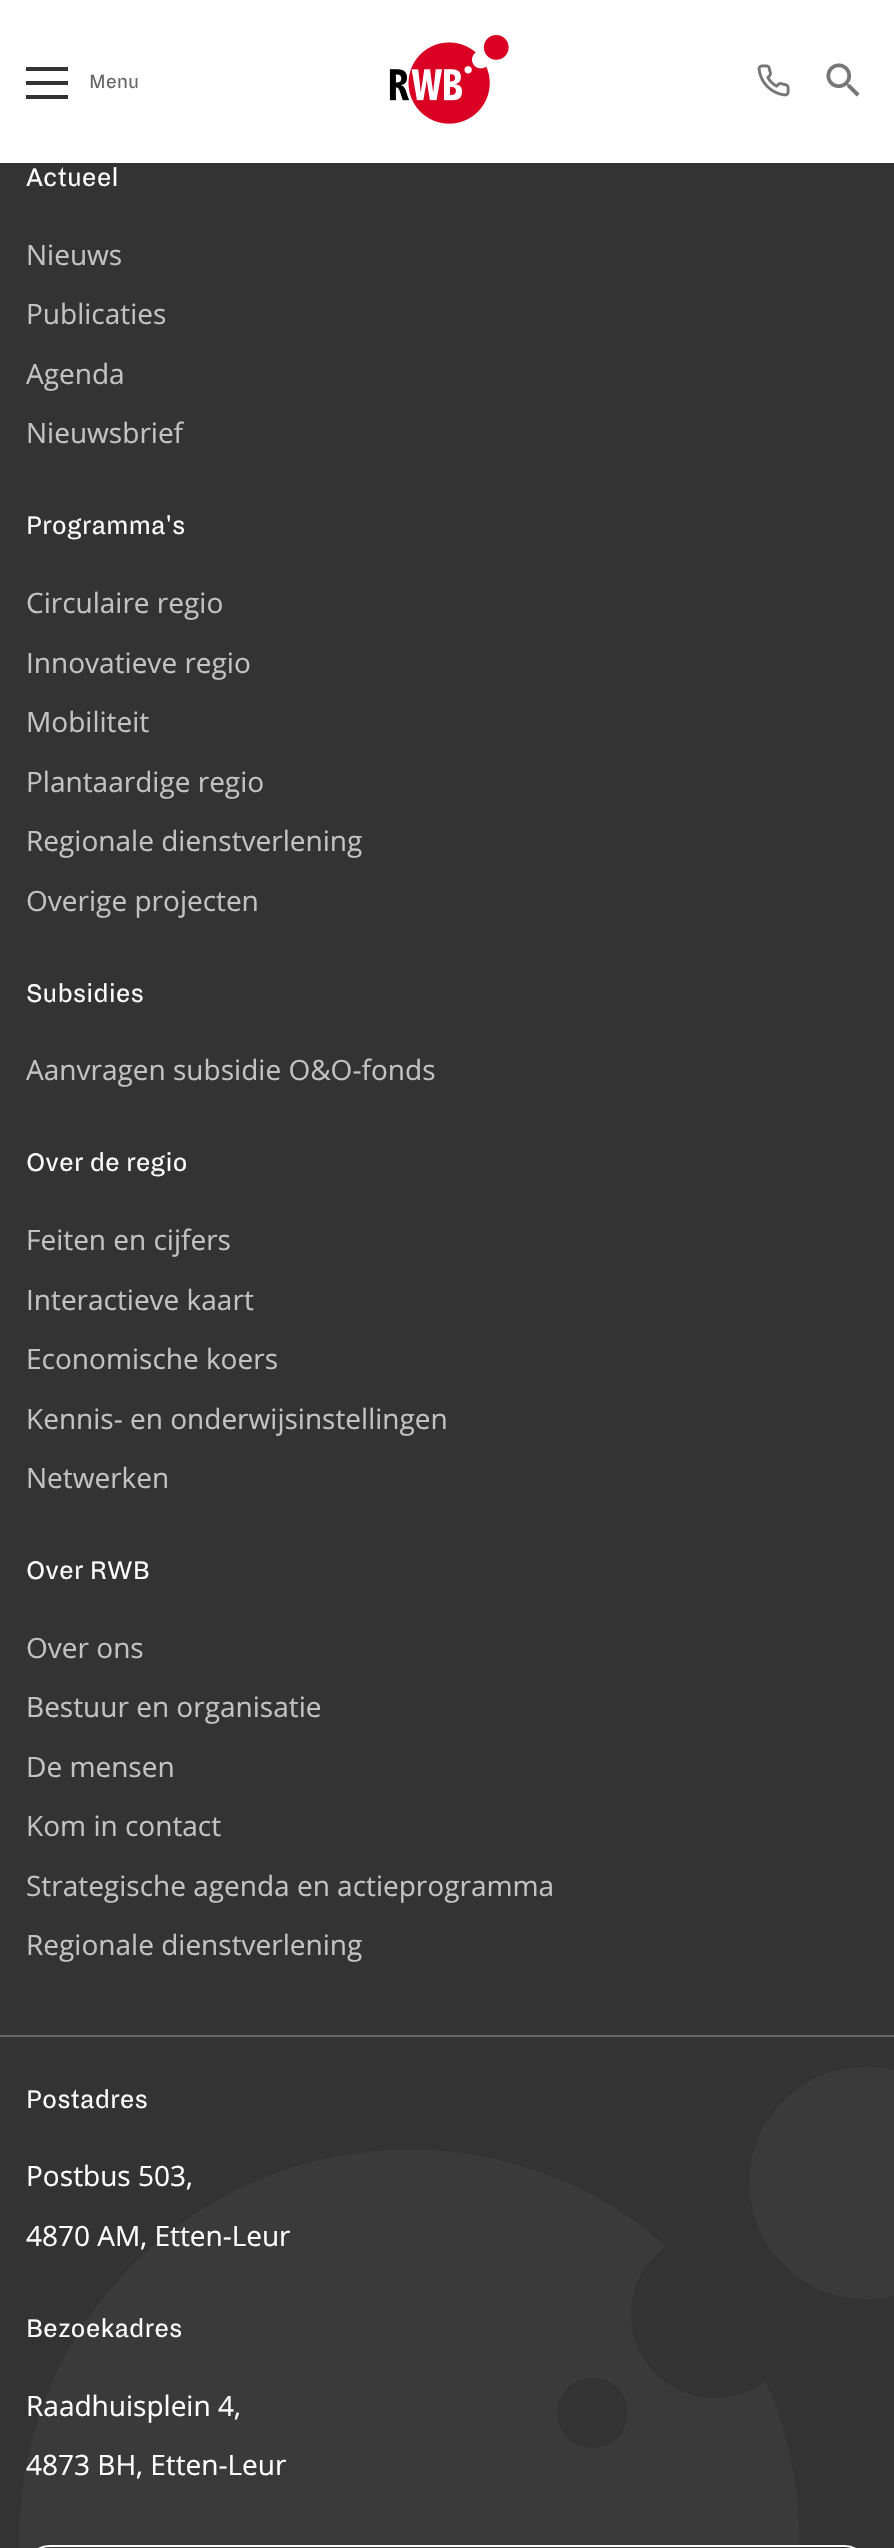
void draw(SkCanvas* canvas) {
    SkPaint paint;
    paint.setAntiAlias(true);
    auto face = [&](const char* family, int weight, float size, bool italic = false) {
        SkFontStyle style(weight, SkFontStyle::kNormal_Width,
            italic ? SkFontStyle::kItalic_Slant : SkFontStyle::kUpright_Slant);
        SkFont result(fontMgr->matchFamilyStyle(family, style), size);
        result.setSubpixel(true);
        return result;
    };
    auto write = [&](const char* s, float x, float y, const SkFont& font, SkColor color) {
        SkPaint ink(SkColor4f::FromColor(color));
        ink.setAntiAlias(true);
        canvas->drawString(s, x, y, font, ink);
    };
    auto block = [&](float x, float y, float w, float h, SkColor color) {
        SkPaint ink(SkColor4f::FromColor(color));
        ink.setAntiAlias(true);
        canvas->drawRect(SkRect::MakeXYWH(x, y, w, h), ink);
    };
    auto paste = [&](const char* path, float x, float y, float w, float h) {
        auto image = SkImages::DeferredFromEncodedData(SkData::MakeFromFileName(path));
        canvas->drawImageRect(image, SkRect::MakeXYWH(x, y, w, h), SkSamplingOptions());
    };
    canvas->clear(SkColorSetRGB(51, 51, 51));
    block(0, 0, 894, 163, SK_ColorWHITE);
    block(26, 81, 42, 4, SkColorSetRGB(51, 51, 51));
    block(26, 67, 42, 4, SkColorSetRGB(51, 51, 51));
    block(26, 95, 42, 4, SkColorSetRGB(51, 51, 51));
    auto kFont1 = face("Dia", 400, 21);
    write("Menu", 89, 88, kFont1, SkColorSetRGB(102, 102, 102));
    paste("pic1.png", 389, 35, 120, 89);
    paste("pic2.png", 757, 64, 33, 33);
    paste("pic3.png", 826, 63, 34, 34);
    paste("pic4.png", 19, 2067, 875, 481);
    auto kFont2 = face("Dia", 400, 28);
    write("Actueel", 26, 186, kFont2, SK_ColorWHITE);
    auto kFont3 = face("Open Sans", 400, 28);
    write("Nieuws", 26, 265, kFont3, SkColorSetRGB(194, 194, 194));
    write("Publicaties", 26, 324, kFont3, SkColorSetRGB(194, 194, 194));
    write("Agenda", 26, 384, kFont3, SkColorSetRGB(194, 194, 194));
    write("Nieuwsbrief", 26, 443, kFont3, SkColorSetRGB(194, 194, 194));
    write("Programma's", 26, 534, kFont2, SK_ColorWHITE);
    write("Circulaire regio", 26, 613, kFont3, SkColorSetRGB(194, 194, 194));
    write("Innovatieve regio", 26, 673, kFont3, SkColorSetRGB(194, 194, 194));
    write("Mobiliteit", 26, 732, kFont3, SkColorSetRGB(194, 194, 194));
    write("Plantaardige regio", 26, 792, kFont3, SkColorSetRGB(194, 194, 194));
    write("Regionale dienstverlening", 26, 851, kFont3, SkColorSetRGB(194, 194, 194));
    write("Overige projecten", 26, 911, kFont3, SkColorSetRGB(194, 194, 194));
    write("Subsidies", 26, 1002, kFont2, SK_ColorWHITE);
    write("Aanvragen subsidie O&O-fonds", 26, 1080, kFont3, SkColorSetRGB(194, 194, 194));
    write("Over de regio", 26, 1171, kFont2, SK_ColorWHITE);
    write("Feiten en cijfers", 26, 1250, kFont3, SkColorSetRGB(194, 194, 194));
    write("Interactieve kaart", 26, 1310, kFont3, SkColorSetRGB(194, 194, 194));
    write("Economische koers", 26, 1369, kFont3, SkColorSetRGB(194, 194, 194));
    write("Kennis- en onderwijsinstellingen", 26, 1429, kFont3, SkColorSetRGB(194, 194, 194));
    write("Netwerken", 26, 1488, kFont3, SkColorSetRGB(194, 194, 194));
    write("Over RWB", 26, 1579, kFont2, SK_ColorWHITE);
    write("Over ons", 26, 1658, kFont3, SkColorSetRGB(194, 194, 194));
    write("Bestuur en organisatie", 26, 1717, kFont3, SkColorSetRGB(194, 194, 194));
    write("De mensen", 26, 1777, kFont3, SkColorSetRGB(194, 194, 194));
    write("Kom in contact", 26, 1836, kFont3, SkColorSetRGB(194, 194, 194));
    write("Strategische agenda en actieprogramma", 26, 1896, kFont3, SkColorSetRGB(194, 194, 194));
    write("Regionale dienstverlening", 26, 1955, kFont3, SkColorSetRGB(194, 194, 194));
    block(0, 2035, 894, 2, SkColorSetRGB(102, 102, 102));
    write("Postadres", 26, 2108, kFont2, SK_ColorWHITE);
    write("Postbus 503,", 26, 2186, kFont3, SK_ColorWHITE);
    write("4870 AM, Etten-Leur", 26, 2246, kFont3, SK_ColorWHITE);
    write("Bezoekadres", 26, 2337, kFont2, SK_ColorWHITE);
    write("Raadhuisplein 4,", 26, 2416, kFont3, SK_ColorWHITE);
    write("4873 BH, Etten-Leur", 26, 2475, kFont3, SK_ColorWHITE);
    paint.setStyle(SkPaint::kStroke_Style);
    paint.setStrokeWidth(2);
    paint.setColor(SK_ColorWHITE);
    canvas->drawRoundRect(SkRect::MakeXYWH(27, 2546, 840, 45), 41, 41, paint);
}
